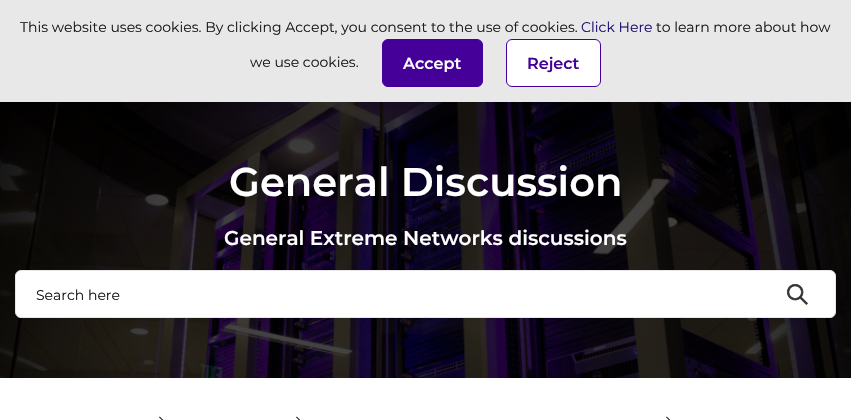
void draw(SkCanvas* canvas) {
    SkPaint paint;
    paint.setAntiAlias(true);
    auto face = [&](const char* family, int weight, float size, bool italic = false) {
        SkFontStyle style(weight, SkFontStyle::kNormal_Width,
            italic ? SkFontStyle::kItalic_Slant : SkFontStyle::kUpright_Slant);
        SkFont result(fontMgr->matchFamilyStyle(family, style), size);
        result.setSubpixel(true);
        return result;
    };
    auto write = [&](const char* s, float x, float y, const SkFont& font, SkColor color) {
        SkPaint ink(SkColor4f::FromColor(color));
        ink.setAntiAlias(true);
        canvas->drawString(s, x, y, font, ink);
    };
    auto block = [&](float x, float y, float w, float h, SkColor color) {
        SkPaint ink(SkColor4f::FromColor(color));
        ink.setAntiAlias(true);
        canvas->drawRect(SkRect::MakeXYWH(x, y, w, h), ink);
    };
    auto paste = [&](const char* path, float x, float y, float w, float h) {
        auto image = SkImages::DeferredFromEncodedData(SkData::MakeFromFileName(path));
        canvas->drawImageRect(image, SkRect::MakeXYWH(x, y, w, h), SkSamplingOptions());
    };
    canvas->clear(SK_ColorWHITE);
    block(0, 0, 851, 102, SkColorSetRGB(232, 232, 232));
    auto kFont1 = face("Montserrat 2", 100, 14);
    write("This website uses cookies. By clicking Accept, you consent to the use of cookies.", 20, 32, kFont1, SkColorSetRGB(26, 26, 26));
    write("Click Here", 581, 32, kFont1, SkColorSetRGB(25, 15, 113));
    write("to learn more about how", 656, 32, kFont1, SkColorSetRGB(26, 26, 26));
    write("we use cookies.", 250, 67, kFont1, SkColorSetRGB(26, 26, 26));
    paint.setColor(SkColorSetRGB(68, 0, 153));
    canvas->drawRoundRect(SkRect::MakeXYWH(382.5f, 39.5f, 100, 47), 5.5f, 5.5f, paint);
    paint.setStyle(SkPaint::kStroke_Style);
    paint.setStrokeWidth(1);
    canvas->drawRoundRect(SkRect::MakeXYWH(382.5f, 39.5f, 100, 47), 5.5f, 5.5f, paint);
    auto kFont2 = face("Montserrat", 100, 16);
    write("Accept", 403, 69, kFont2, SK_ColorWHITE);
    paint.setStyle(SkPaint::kFill_Style);
    paint.setColor(SK_ColorWHITE);
    canvas->drawRoundRect(SkRect::MakeXYWH(506.5f, 39.5f, 94, 47), 5.5f, 5.5f, paint);
    paint.setStyle(SkPaint::kStroke_Style);
    paint.setColor(SkColorSetRGB(68, 0, 153));
    canvas->drawRoundRect(SkRect::MakeXYWH(506.5f, 39.5f, 94, 47), 5.5f, 5.5f, paint);
    write("Reject", 527, 69, kFont2, SkColorSetRGB(68, 0, 153));
    paste("pic1.png", 0, 102, 851, 276);
    auto kFont3 = face("Montserrat", 100, 40);
    write("General Discussion", 229, 196, kFont3, SK_ColorWHITE);
    auto kFont4 = face("Montserrat", 100, 20);
    write("General Extreme Networks discussions", 224, 245, kFont4, SK_ColorWHITE);
    paint.setStyle(SkPaint::kFill_Style);
    paint.setColor(SK_ColorWHITE);
    canvas->drawRoundRect(SkRect::MakeXYWH(15.5f, 270.5f, 820, 47), 5.5f, 5.5f, paint);
    paint.setStyle(SkPaint::kStroke_Style);
    paint.setColor(SkColorSetRGB(232, 232, 232));
    canvas->drawRoundRect(SkRect::MakeXYWH(15.5f, 270.5f, 820, 47), 5.5f, 5.5f, paint);
    write("Search here", 36, 300, kFont1, SkColorSetRGB(26, 26, 26));
    paste("pic2.png", 786, 283, 22, 22);
    paste("pic3.png", 159, 416, 5, 4);
    paste("pic3.png", 296, 416, 5, 4);
    paste("pic3.png", 666, 416, 5, 4);
}
